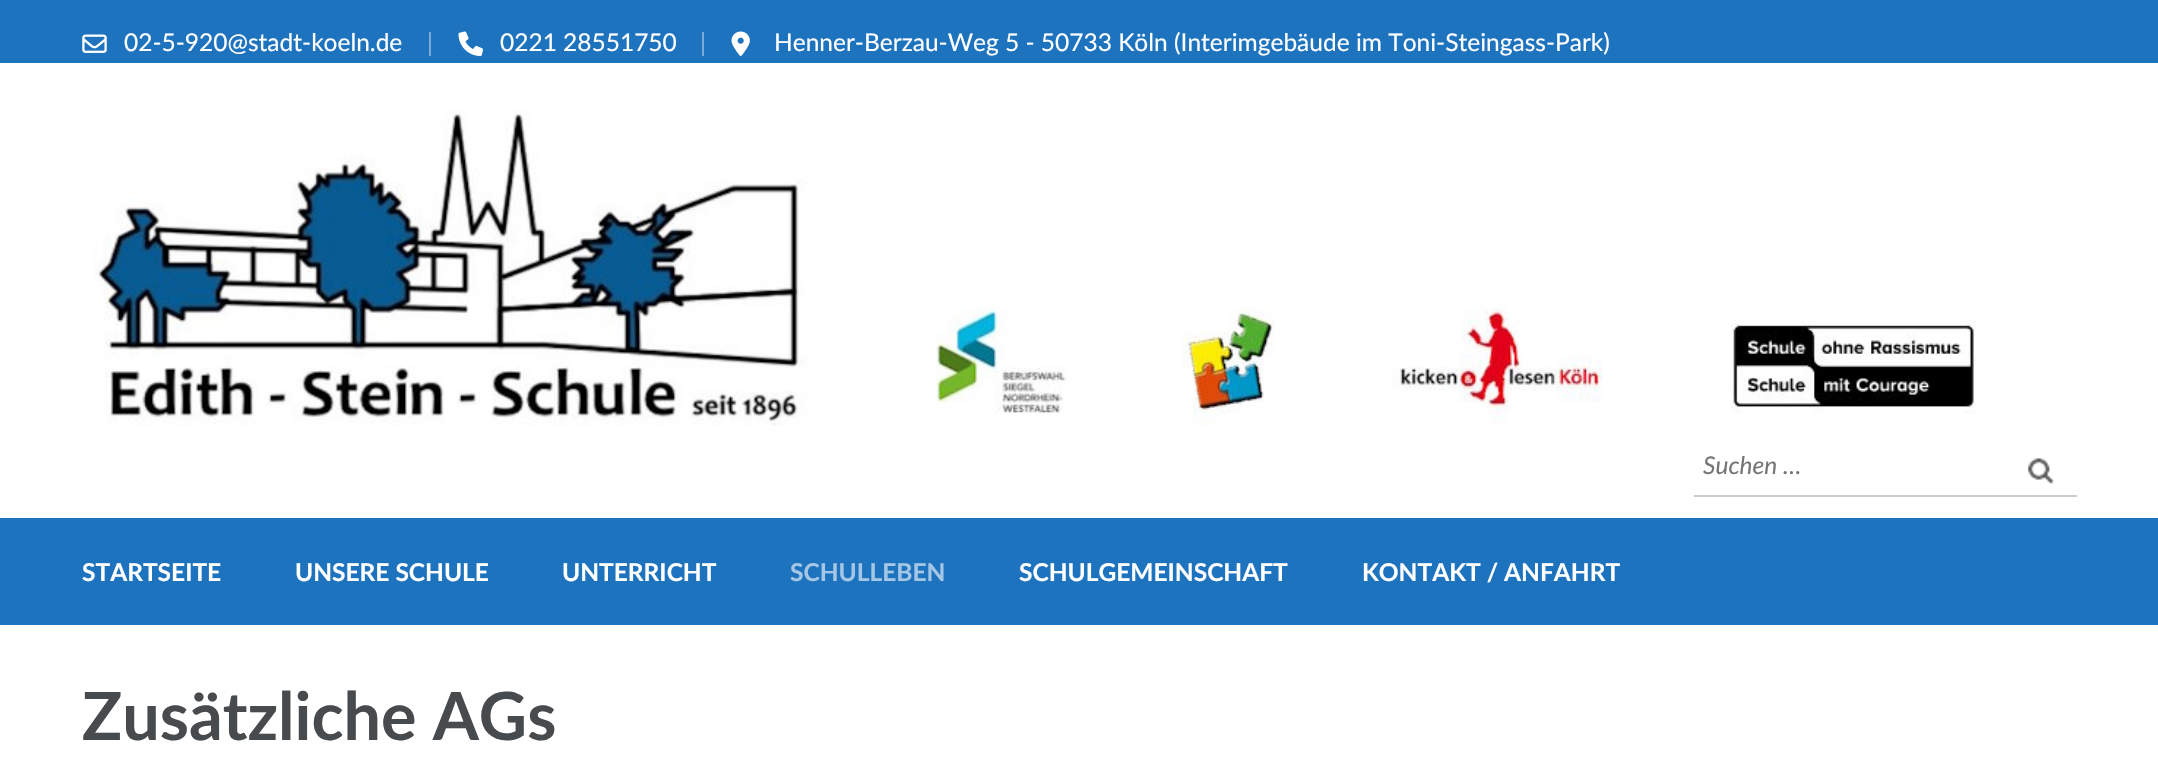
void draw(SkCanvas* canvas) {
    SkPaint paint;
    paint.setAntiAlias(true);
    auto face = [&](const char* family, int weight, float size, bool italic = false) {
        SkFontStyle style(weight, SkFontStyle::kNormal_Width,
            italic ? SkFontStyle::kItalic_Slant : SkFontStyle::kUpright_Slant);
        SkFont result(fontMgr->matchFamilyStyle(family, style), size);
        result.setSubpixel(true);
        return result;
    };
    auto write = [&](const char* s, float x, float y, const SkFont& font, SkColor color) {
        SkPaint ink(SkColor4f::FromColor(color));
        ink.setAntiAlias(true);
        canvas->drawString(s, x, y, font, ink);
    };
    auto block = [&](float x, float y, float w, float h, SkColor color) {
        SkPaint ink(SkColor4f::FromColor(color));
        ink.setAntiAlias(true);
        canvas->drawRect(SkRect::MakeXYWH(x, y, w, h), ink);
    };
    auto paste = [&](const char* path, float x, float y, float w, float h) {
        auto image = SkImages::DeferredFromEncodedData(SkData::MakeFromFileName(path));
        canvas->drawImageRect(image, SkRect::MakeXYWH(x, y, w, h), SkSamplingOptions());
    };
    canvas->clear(SK_ColorWHITE);
    block(0, 0, 2158, 63, SkColorSetRGB(30, 115, 190));
    paste("pic1.png", 82, 34, 25, 19);
    auto kFont1 = face("Lato", 400, 24.5f);
    write("02-5-920@stadt-koeln.de", 124, 51, kFont1, SK_ColorWHITE);
    block(429, 32, 2, 24, SkColorSetRGB(120, 171, 216));
    paste("pic2.png", 458, 31, 25, 25);
    write("0221 28551750", 500, 51, kFont1, SK_ColorWHITE);
    block(702, 32, 2, 24, SkColorSetRGB(120, 171, 216));
    paste("pic3.png", 731, 31, 19, 25);
    write("Henner-Berzau-Weg 5 - 50733 Köln (Interimgebäude im Toni-Steingass-Park)", 774, 51, kFont1, SK_ColorWHITE);
    paste("pic4.png", 94, 110, 1882, 316);
    block(1694, 495, 383, 2, SkColorSetRGB(204, 204, 204));
    auto kFont2 = face("Lato", 400, 24.5f, true);
    write("Suchen …", 1703, 474, kFont2, SkColorSetRGB(117, 117, 117));
    paste("pic5.png", 2028, 458, 26, 26);
    block(0, 518, 2158, 107, SkColorSetRGB(30, 115, 190));
    auto kFont3 = face("Lato", 700, 24.5f);
    write("STARTSEITE", 82, 581, kFont3, SK_ColorWHITE);
    write("UNSERE SCHULE", 295, 581, kFont3, SK_ColorWHITE);
    write("UNTERRICHT", 562, 581, kFont3, SK_ColorWHITE);
    write("SCHULLEBEN", 790, 581, kFont3, SkColorSetRGB(165, 199, 229));
    write("SCHULGEMEINSCHAFT", 1019, 581, kFont3, SK_ColorWHITE);
    write("KONTAKT / ANFAHRT", 1362, 581, kFont3, SK_ColorWHITE);
    auto kFont4 = face("Lato", 700, 66.5f);
    write("Zusätzliche AGs", 82, 740, kFont4, SkColorSetRGB(71, 75, 78));
}
